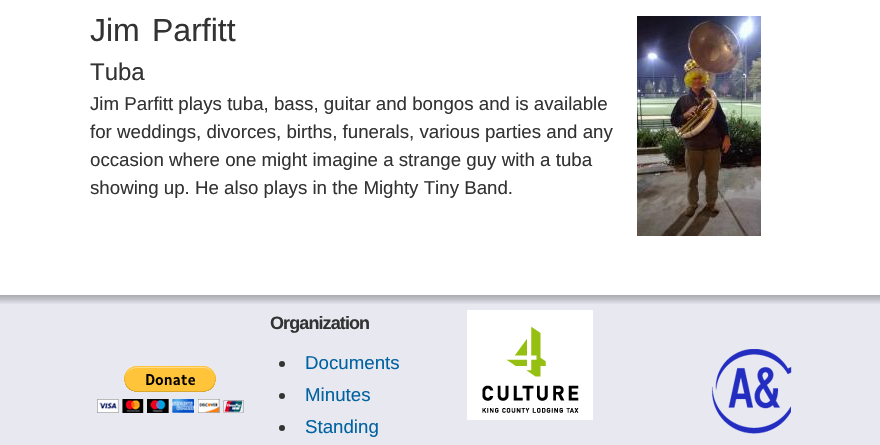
void draw(SkCanvas* canvas) {
    SkPaint paint;
    paint.setAntiAlias(true);
    auto face = [&](const char* family, int weight, float size, bool italic = false) {
        SkFontStyle style(weight, SkFontStyle::kNormal_Width,
            italic ? SkFontStyle::kItalic_Slant : SkFontStyle::kUpright_Slant);
        SkFont result(fontMgr->matchFamilyStyle(family, style), size);
        result.setSubpixel(true);
        return result;
    };
    auto write = [&](const char* s, float x, float y, const SkFont& font, SkColor color) {
        SkPaint ink(SkColor4f::FromColor(color));
        ink.setAntiAlias(true);
        canvas->drawString(s, x, y, font, ink);
    };
    auto writeSpaced = [&](const char* s, float x, float y, const SkFont& font, const SkPaint& ink, float letter, float word) {
        std::vector<SkGlyphID> glyphs(font.countText(s, strlen(s), SkTextEncoding::kUTF8));
        std::vector<float> xs(glyphs.size());
        font.textToGlyphs(s, strlen(s), SkTextEncoding::kUTF8, glyphs);
        font.getXPos(glyphs, xs, x);
        float extra = 0;
        for (size_t i = 0; i < glyphs.size(); i++) {
            xs[i] += extra;
            extra += letter + word * (glyphs[i] == font.unicharToGlyph(' '));
        }
        canvas->drawTextBlob(SkTextBlob::MakeFromPosHGlyphs(glyphs, xs, y, font), 0, 0, ink);
    };
    auto block = [&](float x, float y, float w, float h, SkColor color) {
        SkPaint ink(SkColor4f::FromColor(color));
        ink.setAntiAlias(true);
        canvas->drawRect(SkRect::MakeXYWH(x, y, w, h), ink);
    };
    auto paste = [&](const char* path, float x, float y, float w, float h) {
        auto image = SkImages::DeferredFromEncodedData(SkData::MakeFromFileName(path));
        canvas->drawImageRect(image, SkRect::MakeXYWH(x, y, w, h), SkSamplingOptions());
    };
    canvas->clear(SK_ColorWHITE);
    auto kFont1 = face("Liberation Sans", 400, 32);
    write("Jim", 90, 41, kFont1, SkColorSetRGB(51, 51, 51));
    write("Parfitt", 152, 41, kFont1, SkColorSetRGB(51, 51, 51));
    paste("pic1.png", 637, 16, 124, 220);
    auto kFont2 = face("Liberation Sans", 400, 24);
    write("Tuba", 90, 80, kFont2, SkColorSetRGB(51, 51, 51));
    auto kFont3 = face("Liberation Sans", 400, 18.7f);
    write("Jim Parfitt plays tuba, bass, guitar and bongos and is available", 90, 110, kFont3, SkColorSetRGB(51, 51, 51));
    write("for weddings, divorces, births, funerals, various parties and any", 90, 138, kFont3, SkColorSetRGB(51, 51, 51));
    write("occasion where one might imagine a strange guy with a tuba", 90, 166, kFont3, SkColorSetRGB(51, 51, 51));
    write("showing up. He also plays in the Mighty Tiny Band.", 90, 194, kFont3, SkColorSetRGB(51, 51, 51));
    block(0, 295, 880, 150, SkColorSetRGB(232, 232, 241));
    paste("pic2.png", 0, 295, 880, 9);
    paste("pic3.png", 97, 366, 147, 47);
    auto kFont4 = face("Liberation Sans", 700, 18);
    paint.setColor(SkColorSetRGB(51, 51, 51));
    writeSpaced("Organization", 270, 329, kFont4, paint, -0.9f, 0);
    canvas->drawCircle(282, 364, 3, paint);
    write("Documents", 305, 369, kFont3, SkColorSetRGB(0, 98, 160));
    canvas->drawCircle(282, 396, 3, paint);
    write("Minutes", 305, 401, kFont3, SkColorSetRGB(0, 98, 160));
    canvas->drawCircle(282, 428, 3, paint);
    write("Standing", 305, 433, kFont3, SkColorSetRGB(0, 98, 160));
    paste("pic4.png", 467, 310, 126, 110);
    paste("pic5.png", 711, 349, 81, 85);
}
